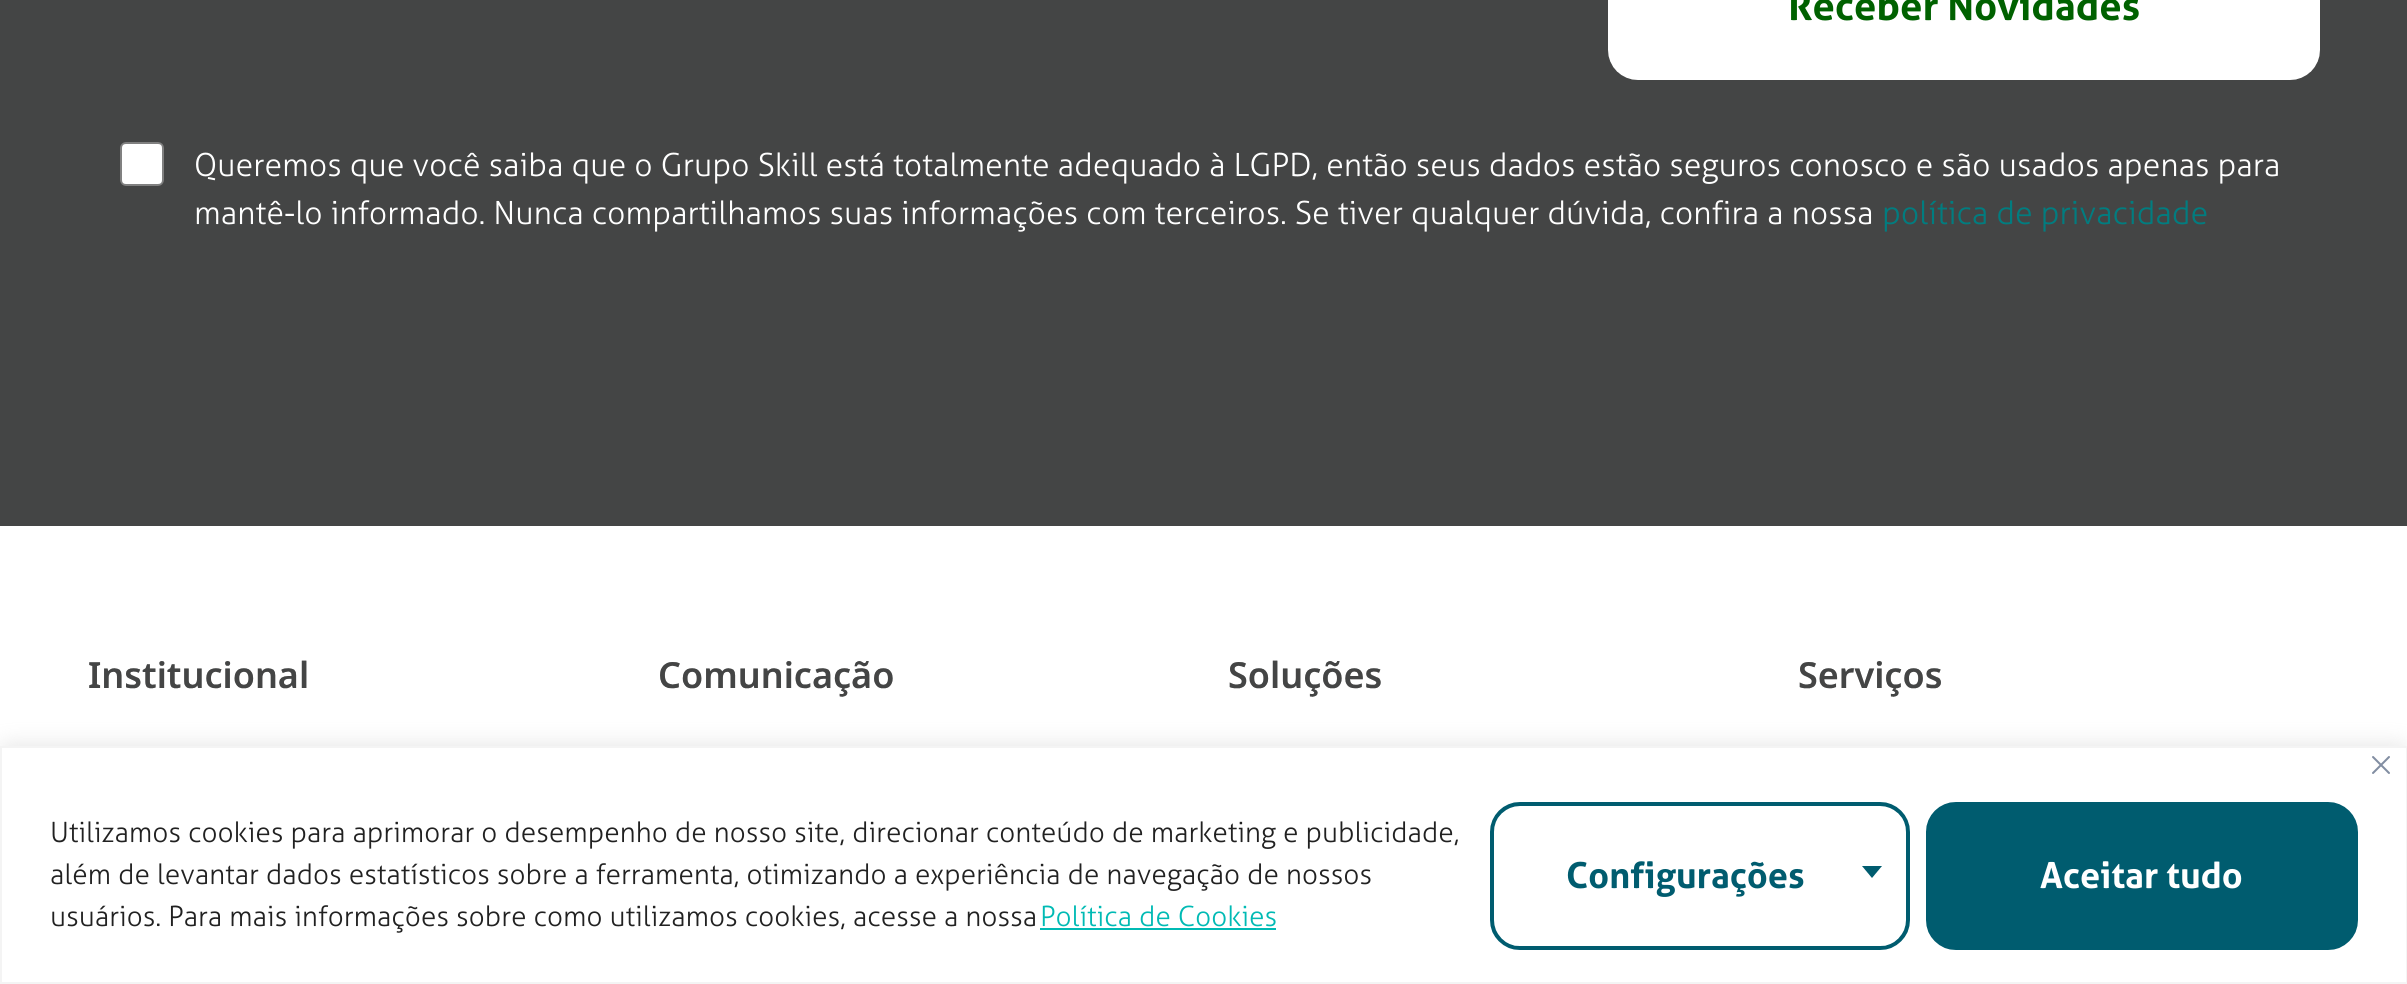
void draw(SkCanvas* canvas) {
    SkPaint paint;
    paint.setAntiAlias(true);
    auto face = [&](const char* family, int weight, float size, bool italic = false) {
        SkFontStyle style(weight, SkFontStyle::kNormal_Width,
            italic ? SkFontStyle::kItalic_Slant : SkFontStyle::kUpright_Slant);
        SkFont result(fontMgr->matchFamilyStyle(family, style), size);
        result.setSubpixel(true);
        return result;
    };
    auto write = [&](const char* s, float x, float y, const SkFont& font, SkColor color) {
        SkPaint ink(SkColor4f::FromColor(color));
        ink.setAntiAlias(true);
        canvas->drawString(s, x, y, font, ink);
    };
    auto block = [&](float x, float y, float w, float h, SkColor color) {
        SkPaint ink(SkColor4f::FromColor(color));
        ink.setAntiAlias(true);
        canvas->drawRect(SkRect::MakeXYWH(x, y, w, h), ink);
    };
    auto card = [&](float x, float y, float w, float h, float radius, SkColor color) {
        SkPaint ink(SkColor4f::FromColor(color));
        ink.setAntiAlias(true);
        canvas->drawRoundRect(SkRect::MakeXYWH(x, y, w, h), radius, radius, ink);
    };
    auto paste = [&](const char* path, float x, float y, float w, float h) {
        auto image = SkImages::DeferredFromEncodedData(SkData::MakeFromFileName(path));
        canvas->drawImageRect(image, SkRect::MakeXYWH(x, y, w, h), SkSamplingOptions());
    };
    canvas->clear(SK_ColorWHITE);
    block(0, 0, 2407, 526, SkColorSetRGB(68, 69, 69));
    card(1608, -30, 712, 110, 30, SK_ColorWHITE);
    paste("pic1.png", 1791, 0, 348, 21);
    paint.setColor(SK_ColorWHITE);
    canvas->drawRoundRect(SkRect::MakeXYWH(121, 143, 42, 42), 5, 5, paint);
    paint.setStyle(SkPaint::kStroke_Style);
    paint.setStrokeWidth(2);
    paint.setColor(SkColorSetRGB(128, 128, 128));
    canvas->drawRoundRect(SkRect::MakeXYWH(121, 143, 42, 42), 5, 5, paint);
    paste("pic2.png", 196, 152, 2082, 32);
    paste("pic3.png", 196, 200, 1676, 32);
    paste("pic4.png", 1884, 200, 323, 32);
    auto kFont1 = face("Noto Sans", 600, 36);
    write("Institucional", 88, 688, kFont1, SkColorSetRGB(68, 69, 69));
    write("Comunicação", 658, 688, kFont1, SkColorSetRGB(68, 69, 69));
    write("Soluções", 1228, 688, kFont1, SkColorSetRGB(68, 69, 69));
    write("Serviços", 1798, 688, kFont1, SkColorSetRGB(68, 69, 69));
    paint.setStyle(SkPaint::kFill_Style);
    paint.setColor(SkColorSetARGB(77, 172, 171, 171));
    paint.setMaskFilter(SkMaskFilter::MakeBlur(kNormal_SkBlurStyle, 10));
    canvas->drawRect(SkRect::MakeXYWH(0, 744, 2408, 238), paint);
    paint.setMaskFilter(nullptr);
    paint.setColor(SK_ColorWHITE);
    canvas->drawRect(SkRect::MakeXYWH(1, 747, 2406, 236), paint);
    paint.setStyle(SkPaint::kStroke_Style);
    paint.setColor(SkColorSetRGB(244, 244, 244));
    canvas->drawRect(SkRect::MakeXYWH(1, 747, 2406, 236), paint);
    paste("pic5.png", 2372, 756, 18, 18);
    paste("pic6.png", 52, 821, 1406, 28);
    paste("pic7.png", 51, 863, 1320, 28);
    paste("pic8.png", 52, 905, 983, 28);
    paste("pic9.png", 1042, 905, 234, 22);
    block(1040, 928, 236, 2, SkColorSetRGB(0, 186, 180));
    paint.setStrokeWidth(4);
    paint.setColor(SkColorSetRGB(0, 92, 111));
    canvas->drawRoundRect(SkRect::MakeXYWH(1492, 804, 416, 144), 28, 28, paint);
    paste("pic10.png", 1567, 861, 237, 36);
    paint.setStyle(SkPaint::kFill_Style);
    canvas->drawPath(SkPathBuilder().moveTo(1862, 866).lineTo(1882, 866).lineTo(1872, 878).close().detach(), paint);
    canvas->drawRoundRect(SkRect::MakeXYWH(1928, 804, 428, 144), 28, 28, paint);
    paint.setStyle(SkPaint::kStroke_Style);
    canvas->drawRoundRect(SkRect::MakeXYWH(1928, 804, 428, 144), 28, 28, paint);
    paste("pic11.png", 2040, 861, 202, 28);
}
